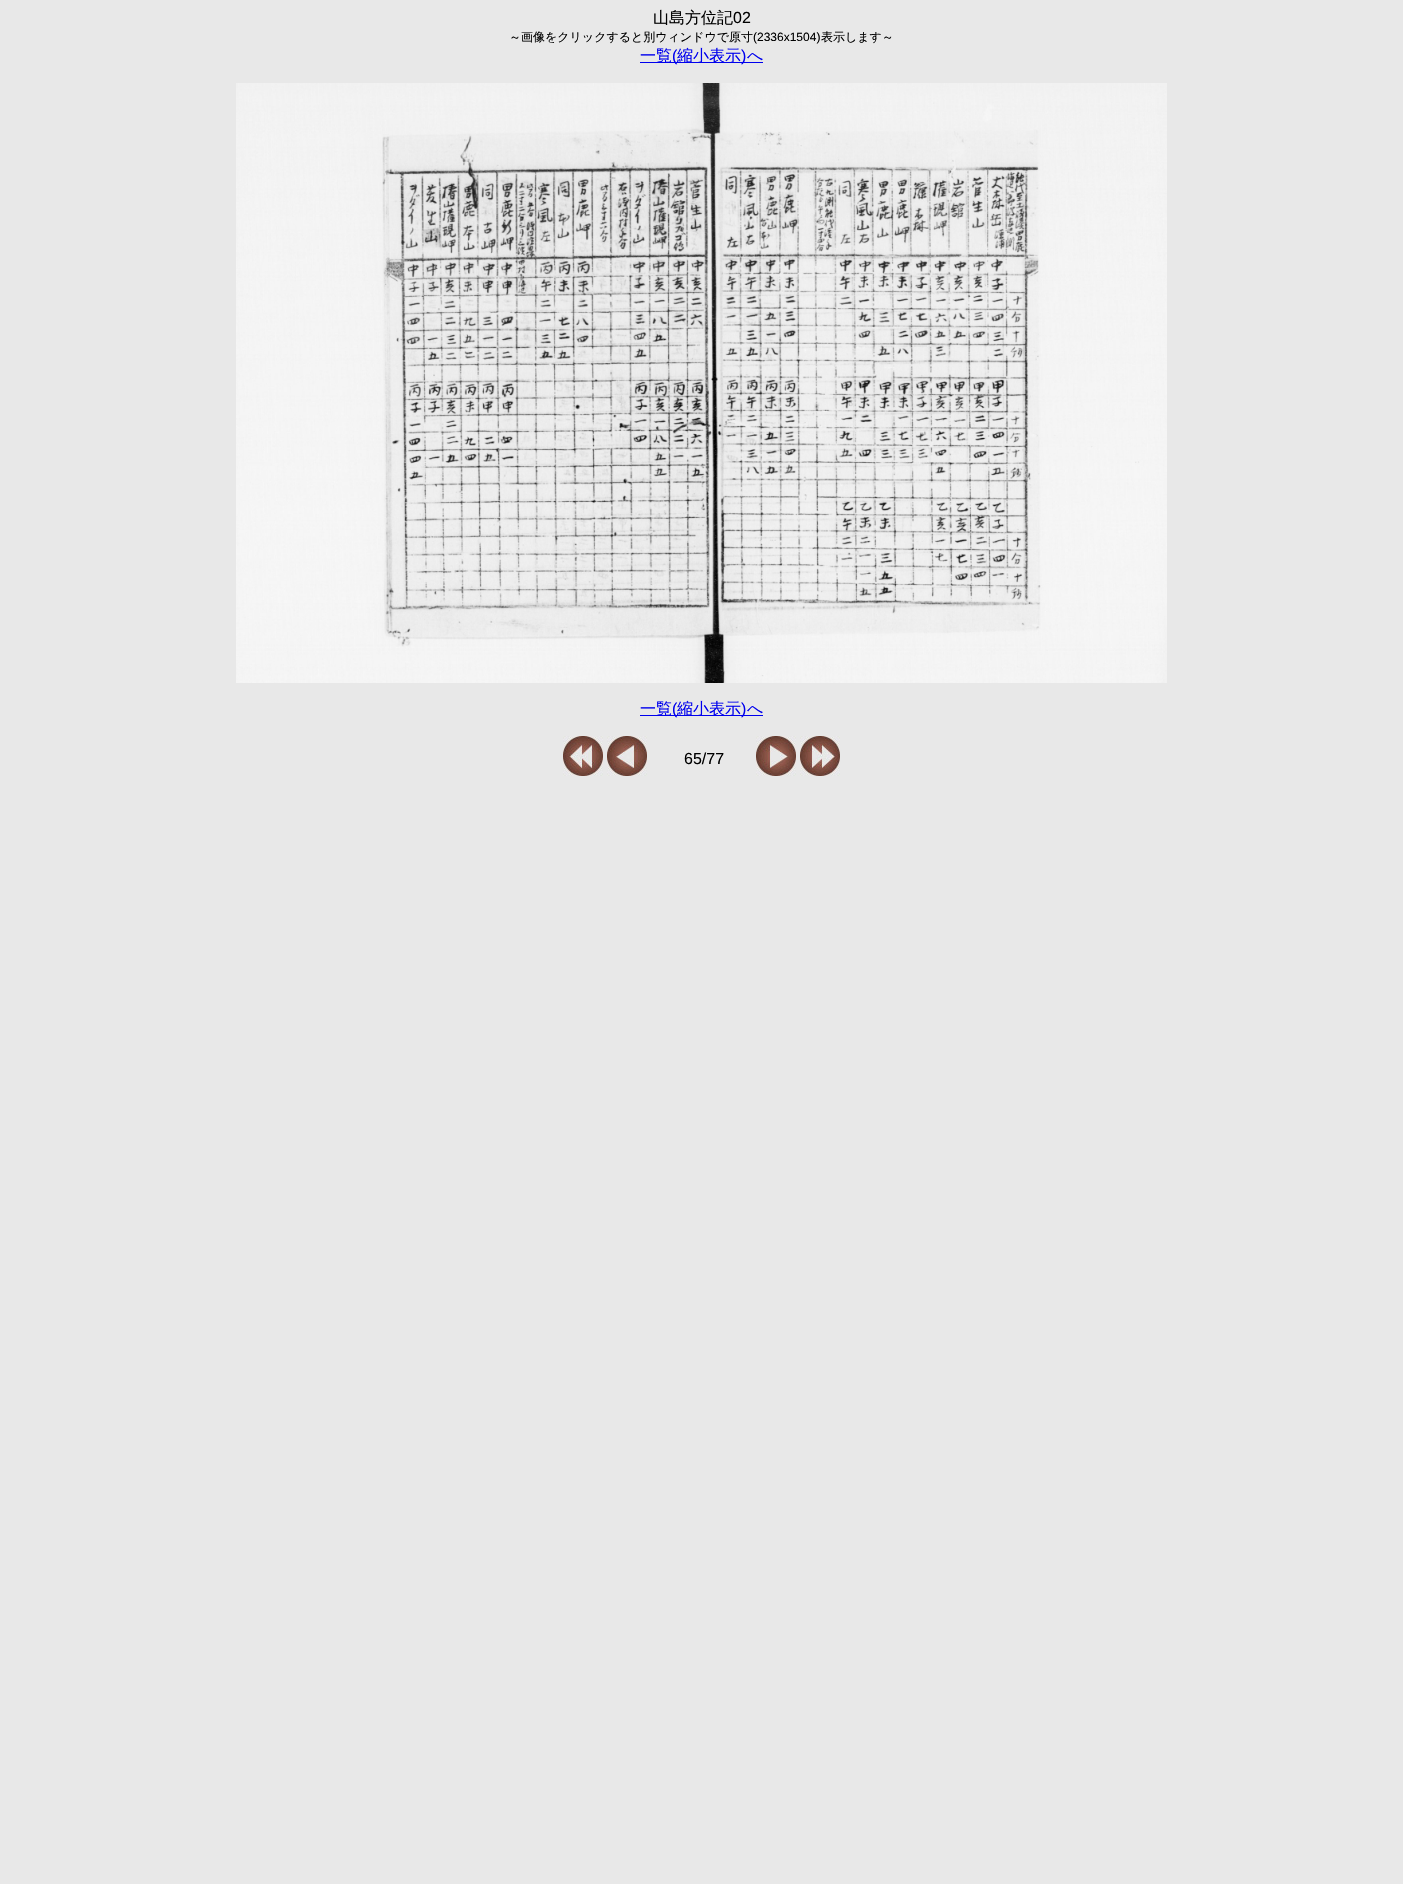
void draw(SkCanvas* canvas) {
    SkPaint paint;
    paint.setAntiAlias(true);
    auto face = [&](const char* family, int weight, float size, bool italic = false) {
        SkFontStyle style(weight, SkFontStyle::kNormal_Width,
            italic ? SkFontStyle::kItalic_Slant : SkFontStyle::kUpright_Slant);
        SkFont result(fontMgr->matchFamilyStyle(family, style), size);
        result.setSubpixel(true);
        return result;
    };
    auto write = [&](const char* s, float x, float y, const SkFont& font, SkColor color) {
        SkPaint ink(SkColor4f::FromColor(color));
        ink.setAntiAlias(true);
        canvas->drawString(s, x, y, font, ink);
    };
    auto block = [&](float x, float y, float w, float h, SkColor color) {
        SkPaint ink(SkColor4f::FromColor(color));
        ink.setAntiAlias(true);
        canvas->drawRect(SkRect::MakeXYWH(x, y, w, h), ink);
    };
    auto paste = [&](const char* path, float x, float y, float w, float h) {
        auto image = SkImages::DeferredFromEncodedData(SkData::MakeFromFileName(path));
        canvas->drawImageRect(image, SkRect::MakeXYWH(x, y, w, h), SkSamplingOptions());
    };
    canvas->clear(SkColorSetRGB(232, 232, 232));
    auto kFont1 = face("WenQuanYi Zen Hei", 500, 16);
    write("山島方位記", 653, 23, kFont1, SK_ColorBLACK);
    auto kFont2 = face("Liberation Sans", 400, 16);
    write("02", 733, 23, kFont2, SK_ColorBLACK);
    auto kFont3 = face("WenQuanYi Zen Hei", 500, 12);
    write("～画像をクリックすると別ウィンドウで原寸", 509, 41, kFont3, SK_ColorBLACK);
    auto kFont4 = face("Liberation Sans", 400, 12);
    write("(2336x1504)", 753, 41, kFont4, SK_ColorBLACK);
    write("表示します～", 821, 41, kFont3, SK_ColorBLACK);
    block(640, 62, 123, 1, SkColorSetRGB(0, 0, 238));
    write("一覧", 640, 61, kFont1, SkColorSetRGB(0, 0, 238));
    write("(", 672, 61, kFont2, SkColorSetRGB(0, 0, 238));
    write("縮小表示", 677, 61, kFont1, SkColorSetRGB(0, 0, 238));
    write(")", 741, 61, kFont2, SkColorSetRGB(0, 0, 238));
    write("へ", 747, 61, kFont1, SkColorSetRGB(0, 0, 238));
    paste("pic1.png", 236, 83, 931, 600);
    block(640, 715, 123, 1, SkColorSetRGB(0, 0, 238));
    write("一覧", 640, 714, kFont1, SkColorSetRGB(0, 0, 238));
    write("(", 672, 714, kFont2, SkColorSetRGB(0, 0, 238));
    write("縮小表示", 677, 714, kFont1, SkColorSetRGB(0, 0, 238));
    write(")", 741, 714, kFont2, SkColorSetRGB(0, 0, 238));
    write("へ", 747, 714, kFont1, SkColorSetRGB(0, 0, 238));
    paste("pic2.png", 563, 736, 40, 40);
    paste("pic3.png", 607, 736, 40, 40);
    write("65/77", 684, 764, kFont2, SK_ColorBLACK);
    paste("pic4.png", 756, 736, 40, 40);
    paste("pic5.png", 800, 736, 40, 40);
}
